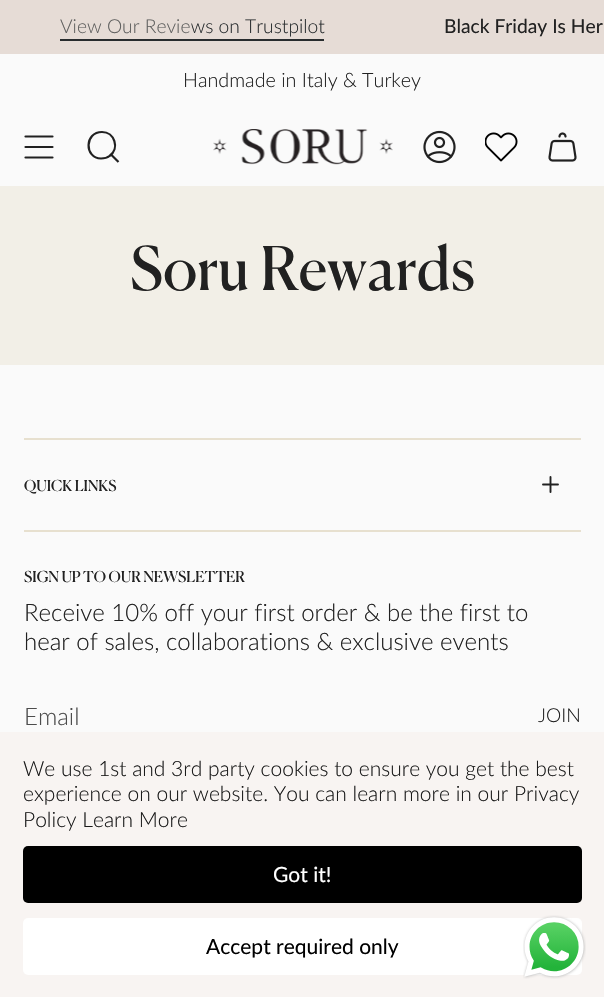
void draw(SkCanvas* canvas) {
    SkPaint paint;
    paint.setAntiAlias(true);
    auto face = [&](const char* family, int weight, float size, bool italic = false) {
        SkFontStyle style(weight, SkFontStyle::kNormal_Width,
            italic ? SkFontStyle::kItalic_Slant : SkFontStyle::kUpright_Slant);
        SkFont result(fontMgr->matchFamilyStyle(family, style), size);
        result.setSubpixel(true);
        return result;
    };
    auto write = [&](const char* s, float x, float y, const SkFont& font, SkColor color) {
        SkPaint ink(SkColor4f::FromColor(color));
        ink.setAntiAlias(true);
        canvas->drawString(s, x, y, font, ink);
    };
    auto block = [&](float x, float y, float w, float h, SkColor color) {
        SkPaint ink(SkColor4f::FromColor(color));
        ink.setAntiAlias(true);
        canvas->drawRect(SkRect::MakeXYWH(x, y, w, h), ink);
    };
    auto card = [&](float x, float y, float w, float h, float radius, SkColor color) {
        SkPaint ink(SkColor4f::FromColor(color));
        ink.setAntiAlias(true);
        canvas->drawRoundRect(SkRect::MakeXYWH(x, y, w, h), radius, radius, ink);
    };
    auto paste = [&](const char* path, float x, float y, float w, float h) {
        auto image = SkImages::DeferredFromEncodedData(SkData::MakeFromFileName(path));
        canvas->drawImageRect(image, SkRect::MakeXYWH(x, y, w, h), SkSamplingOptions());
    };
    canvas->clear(SkColorSetRGB(250, 250, 250));
    block(0, 0, 604, 54, SkColorSetRGB(230, 220, 214));
    auto kFont1 = face("Lato", 300, 19.25f);
    {
        const SkColor colors[] = {SkColorSetRGB(97, 97, 96), SkColorSetRGB(97, 97, 96), SkColorSetRGB(40, 44, 46), SkColorSetRGB(40, 44, 46)};
        const float stops[] = {0, 0.5f, 0.5f, 1};
        const SkPoint ends[] = {{60, 27}, {324, 27}};
        paint.setShader(SkGradientShader::MakeLinear(ends, colors, stops, 4, SkTileMode::kClamp));
        paint.setAlpha(255);
    }
    canvas->drawString("View Our Reviews on Trustpilot", 60, 33, kFont1, paint);
    block(60, 39, 264, 2, SkColorSetRGB(40, 44, 46));
    auto kFont2 = face("Lato", 400, 19.25f);
    write("Black Friday Is Her", 444, 33, kFont2, SkColorSetRGB(33, 33, 33));
    auto kFont3 = face("Lato", 300, 19.75f);
    write("Handmade in Italy & Turkey", 183, 87, kFont3, SkColorSetRGB(33, 33, 33));
    paint.setStyle(SkPaint::kStroke_Style);
    paint.setStrokeWidth(2.2f);
    paint.setStrokeCap(SkPaint::kRound_Cap);
    paint.setStrokeJoin(SkPaint::kRound_Join);
    paint.setShader(nullptr);
    paint.setColor(SkColorSetRGB(33, 33, 33));
    canvas->drawPath(SkPathBuilder().moveTo(25.5f, 136.5f).lineTo(52.5f, 136.5f).moveTo(25.5f, 147).lineTo(52.5f, 147).moveTo(25.5f, 157.5f).lineTo(52.5f, 157.5f).detach(), paint);
    paint.setStrokeCap(SkPaint::kButt_Cap);
    paint.setStrokeJoin(SkPaint::kMiter_Join);
    canvas->drawPath(SkPathBuilder().moveTo(102, 132).cubicTo(114.5f, 132, 120, 148.5f, 109.5f, 156).cubicTo(107, 158, 104, 158.5f, 101, 158.5f).cubicTo(84, 158, 84.5f, 132, 102, 132).close().moveTo(111, 154.5f).lineTo(118.5f, 162).detach(), paint);
    paste("pic1.png", 213, 129, 180, 36);
    paste("pic2.png", 423, 130, 33, 34);
    paste("pic3.png", 485, 132, 33, 30);
    paste("pic4.png", 548, 132, 29, 30);
    block(0, 186, 604, 179, SkColorSetRGB(242, 239, 231));
    auto kFont4 = face("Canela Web", 400, 60);
    write("Soru Rewards", 130, 290, kFont4, SkColorSetRGB(33, 33, 33));
    block(24, 438, 557, 2, SkColorSetRGB(231, 224, 207));
    block(24, 530, 557, 2, SkColorSetRGB(231, 224, 207));
    auto kFont5 = face("Canela Web", 400, 15);
    write("QUICK LINKS", 24, 491, kFont5, SkColorSetRGB(33, 33, 33));
    paint.setStrokeWidth(1.9f);
    paint.setStrokeCap(SkPaint::kRound_Cap);
    paint.setStrokeJoin(SkPaint::kRound_Join);
    canvas->drawPath(SkPathBuilder().moveTo(543, 484.5f).lineTo(550.5f, 484.5f).moveTo(558, 484.5f).lineTo(550.5f, 484.5f).moveTo(550.5f, 484.5f).lineTo(550.5f, 477).moveTo(550.5f, 484.5f).lineTo(550.5f, 492).detach(), paint);
    write("SIGN UP TO OUR NEWSLETTER", 24, 582, kFont5, SkColorSetRGB(33, 33, 33));
    auto kFont6 = face("Lato", 300, 24);
    write("Receive 10% off your first order & be the first to", 24, 621, kFont6, SkColorSetRGB(33, 33, 33));
    write("hear of sales, collaborations & exclusive events", 24, 650, kFont6, SkColorSetRGB(33, 33, 33));
    write("Email", 24, 725, kFont6, SkColorSetRGB(76, 76, 76));
    write("JOIN", 538, 722, kFont1, SkColorSetRGB(33, 33, 33));
    block(0, 732, 604, 265, SkColorSetRGB(248, 244, 242));
    auto kFont7 = face("Lato", 300, 21);
    write("We use 1st and 3rd party cookies to ensure you get the best", 23, 776, kFont7, SkColorSetRGB(26, 26, 26));
    write("experience on our website. You can learn more in our Privacy", 23, 801, kFont7, SkColorSetRGB(26, 26, 26));
    write("Policy Learn More", 23, 827, kFont7, SkColorSetRGB(26, 26, 26));
    card(23, 846, 559, 57, 5, SK_ColorBLACK);
    auto kFont8 = face("Lato", 400, 21);
    write("Got it!", 273, 882, kFont8, SK_ColorWHITE);
    card(23, 918, 559, 57, 5, SK_ColorWHITE);
    write("Accept required only", 206, 954, kFont8, SK_ColorBLACK);
    paste("pic5.png", 523, 915, 63, 64);
}
